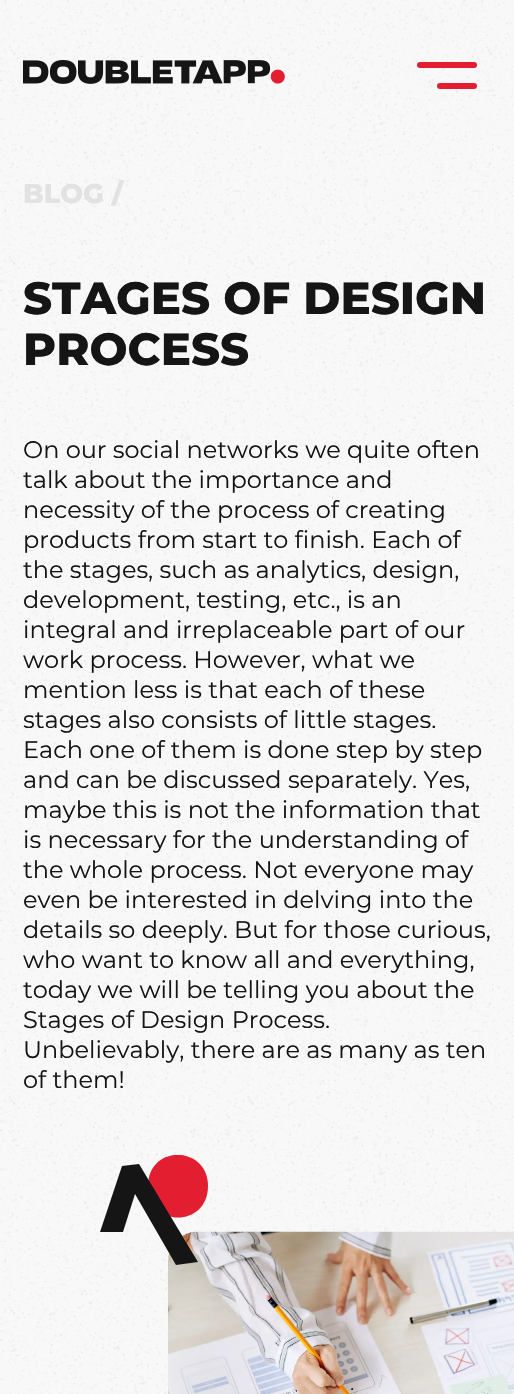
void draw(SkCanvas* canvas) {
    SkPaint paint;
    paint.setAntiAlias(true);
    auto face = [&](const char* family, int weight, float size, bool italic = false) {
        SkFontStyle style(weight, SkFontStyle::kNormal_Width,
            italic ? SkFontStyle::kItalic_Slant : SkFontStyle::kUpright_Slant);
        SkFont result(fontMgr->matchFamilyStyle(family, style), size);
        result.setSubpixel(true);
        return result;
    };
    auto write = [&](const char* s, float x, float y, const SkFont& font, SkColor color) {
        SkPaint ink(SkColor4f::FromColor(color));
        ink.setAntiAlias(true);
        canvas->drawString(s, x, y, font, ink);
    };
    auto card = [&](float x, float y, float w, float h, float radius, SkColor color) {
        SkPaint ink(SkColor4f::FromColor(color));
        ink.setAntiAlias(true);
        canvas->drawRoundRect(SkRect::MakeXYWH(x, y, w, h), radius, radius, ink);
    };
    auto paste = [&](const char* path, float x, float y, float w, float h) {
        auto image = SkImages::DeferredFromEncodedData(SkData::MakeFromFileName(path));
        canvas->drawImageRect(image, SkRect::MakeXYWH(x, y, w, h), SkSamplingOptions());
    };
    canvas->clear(SkColorSetRGB(248, 248, 249));
    paste("pic1.png", 0, 0, 514, 1394);
    paste("pic2.png", 23, 60, 262, 24);
    card(417, 62, 60, 6, 3, SkColorSetRGB(227, 30, 48));
    card(437, 83, 40, 6, 3, SkColorSetRGB(227, 30, 48));
    auto kFont1 = face("Montserrat", 800, 27);
    write("BLOG /", 23, 203, kFont1, SkColorSetRGB(226, 226, 226));
    auto kFont2 = face("Montserrat", 800, 45);
    write("STAGES OF DESIGN", 23, 314, kFont2, SkColorSetRGB(21, 21, 21));
    write("PROCESS", 23, 365, kFont2, SkColorSetRGB(21, 21, 21));
    auto kFont3 = face("Montserrat", 400, 24);
    write("On our social networks we quite often", 23, 458, kFont3, SkColorSetRGB(21, 21, 21));
    write("talk about the importance and", 23, 488, kFont3, SkColorSetRGB(21, 21, 21));
    write("necessity of the process of creating", 23, 518, kFont3, SkColorSetRGB(21, 21, 21));
    write("products from start to finish. Each of", 23, 548, kFont3, SkColorSetRGB(21, 21, 21));
    write("the stages, such as analytics, design,", 23, 578, kFont3, SkColorSetRGB(21, 21, 21));
    write("development, testing, etc., is an", 23, 608, kFont3, SkColorSetRGB(21, 21, 21));
    write("integral and irreplaceable part of our", 23, 638, kFont3, SkColorSetRGB(21, 21, 21));
    write("work process. However, what we", 23, 668, kFont3, SkColorSetRGB(21, 21, 21));
    write("mention less is that each of these", 23, 698, kFont3, SkColorSetRGB(21, 21, 21));
    write("stages also consists of little stages.", 23, 728, kFont3, SkColorSetRGB(21, 21, 21));
    write("Each one of them is done step by step", 23, 758, kFont3, SkColorSetRGB(21, 21, 21));
    write("and can be discussed separately. Yes,", 23, 788, kFont3, SkColorSetRGB(21, 21, 21));
    write("maybe this is not the information that", 23, 818, kFont3, SkColorSetRGB(21, 21, 21));
    write("is necessary for the understanding of", 23, 848, kFont3, SkColorSetRGB(21, 21, 21));
    write("the whole process. Not everyone may", 23, 878, kFont3, SkColorSetRGB(21, 21, 21));
    write("even be interested in delving into the", 23, 908, kFont3, SkColorSetRGB(21, 21, 21));
    write("details so deeply. But for those curious,", 23, 938, kFont3, SkColorSetRGB(21, 21, 21));
    write("who want to know all and everything,", 23, 968, kFont3, SkColorSetRGB(21, 21, 21));
    write("today we will be telling you about the", 23, 998, kFont3, SkColorSetRGB(21, 21, 21));
    write("Stages of Design Process.", 23, 1028, kFont3, SkColorSetRGB(21, 21, 21));
    write("Unbelievably, there are as many as ten", 23, 1058, kFont3, SkColorSetRGB(21, 21, 21));
    write("of them!", 23, 1088, kFont3, SkColorSetRGB(21, 21, 21));
    canvas->save();
    canvas->clipRect(SkRect::MakeXYWH(93, 1155, 116, 119));
    paint.setColor(SkColorSetRGB(227, 30, 48));
    canvas->drawPath(SkPathBuilder().moveTo(148, 1186).cubicTo(148, 1144, 208, 1145, 208, 1186).cubicTo(208, 1228, 148, 1228, 148, 1186).close().detach(), paint);
    canvas->restore();
    paste("pic3.png", 168, 1231, 346, 163);
    paint.setColor(SkColorSetRGB(21, 21, 21));
    canvas->drawPath(SkPathBuilder().moveTo(198, 1262).lineTo(139, 1164).lineTo(122, 1166).lineTo(100, 1232).lineTo(123, 1232).lineTo(135, 1194).lineTo(176, 1265).close().detach(), paint);
}
